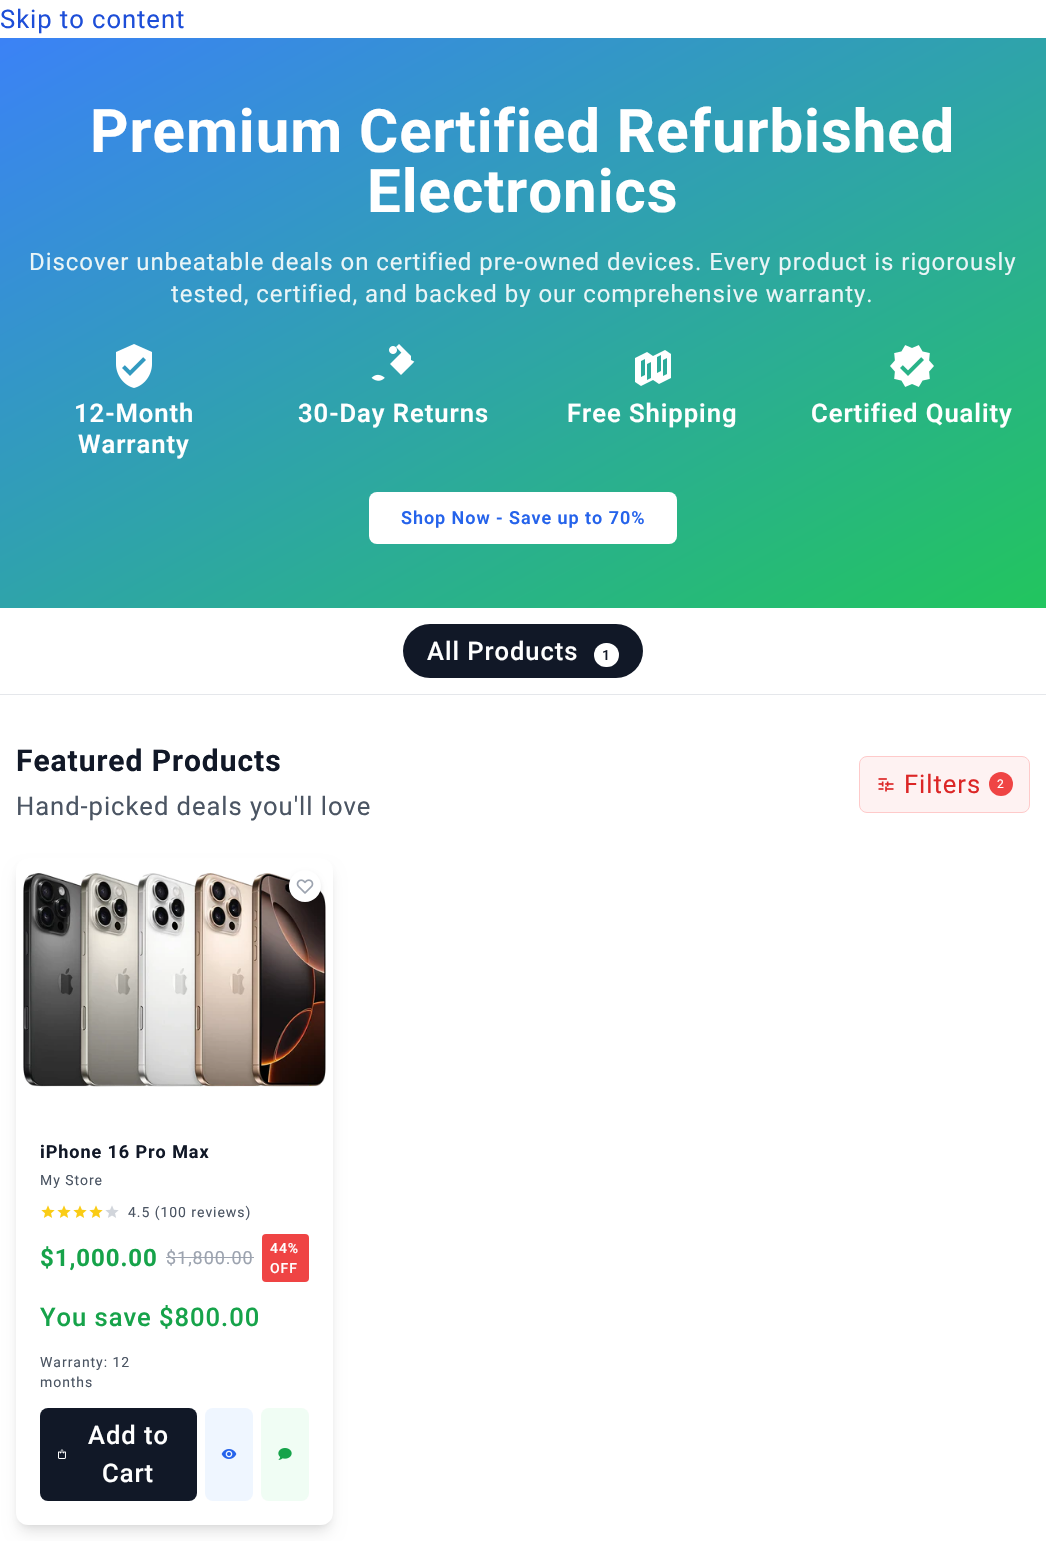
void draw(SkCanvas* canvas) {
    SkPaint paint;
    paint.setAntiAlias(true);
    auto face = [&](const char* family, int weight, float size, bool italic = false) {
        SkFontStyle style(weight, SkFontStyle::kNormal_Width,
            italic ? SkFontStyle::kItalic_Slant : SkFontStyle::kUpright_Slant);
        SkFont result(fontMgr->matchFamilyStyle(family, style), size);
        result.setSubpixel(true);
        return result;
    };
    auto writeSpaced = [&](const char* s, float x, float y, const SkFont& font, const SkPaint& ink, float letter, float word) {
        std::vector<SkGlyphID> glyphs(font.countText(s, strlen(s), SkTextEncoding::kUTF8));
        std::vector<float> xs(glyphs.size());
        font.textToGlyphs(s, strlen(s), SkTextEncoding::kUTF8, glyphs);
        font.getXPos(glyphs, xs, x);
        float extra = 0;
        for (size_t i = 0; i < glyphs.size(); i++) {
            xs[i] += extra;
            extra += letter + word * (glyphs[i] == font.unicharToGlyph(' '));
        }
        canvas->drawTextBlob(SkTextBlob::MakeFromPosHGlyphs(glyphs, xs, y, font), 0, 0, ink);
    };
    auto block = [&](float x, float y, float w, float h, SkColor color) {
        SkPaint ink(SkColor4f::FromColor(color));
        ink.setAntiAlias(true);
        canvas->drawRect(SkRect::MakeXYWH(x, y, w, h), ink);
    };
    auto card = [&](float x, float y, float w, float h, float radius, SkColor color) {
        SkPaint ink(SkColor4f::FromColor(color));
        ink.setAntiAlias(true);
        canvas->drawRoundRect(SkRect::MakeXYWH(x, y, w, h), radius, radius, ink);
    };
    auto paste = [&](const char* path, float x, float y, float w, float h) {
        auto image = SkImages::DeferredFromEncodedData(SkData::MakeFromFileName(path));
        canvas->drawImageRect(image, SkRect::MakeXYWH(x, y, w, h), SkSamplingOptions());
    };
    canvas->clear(SK_ColorWHITE);
    auto kFont1 = face("Roboto", 400, 25.6f);
    paint.setColor(SkColorSetRGB(29, 78, 216));
    writeSpaced("Skip to content", 0, 28, kFont1, paint, 0.95f, 0);
    {
        const SkColor colors[] = {SkColorSetRGB(59, 130, 246), SkColorSetRGB(34, 197, 94)};
        const float stops[] = {0, 1};
        const SkPoint ends[] = {{284, -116}, {762, 762}};
        paint.setShader(SkGradientShader::MakeLinear(ends, colors, stops, 2, SkTileMode::kClamp));
        paint.setAlpha(255);
    }
    canvas->drawRect(SkRect::MakeXYWH(0, 38, 1046, 570), paint);
    auto kFont2 = face("Roboto", 700, 60);
    paint.setShader(nullptr);
    paint.setColor(SK_ColorWHITE);
    writeSpaced("Premium Certified Refurbished", 90, 152, kFont2, paint, 0.95f, 0);
    writeSpaced("Electronics", 367, 212, kFont2, paint, 0.95f, 0);
    auto kFont3 = face("Roboto", 400, 24);
    paint.setColor(SkColorSetRGB(234, 245, 247));
    writeSpaced("Discover unbeatable deals on certified pre-owned devices. Every product is rigorously", 29, 270, kFont3, paint, 0.95f, 0);
    writeSpaced("tested, certified, and backed by our comprehensive warranty.", 171, 302, kFont3, paint, 0.95f, 0);
    paste("pic1.png", 116, 344, 36, 44);
    auto kFont4 = face("Roboto", 600, 25.6f);
    paint.setColor(SK_ColorWHITE);
    writeSpaced("12-Month", 74, 422, kFont4, paint, 0.95f, 0);
    writeSpaced("Warranty", 78, 453, kFont4, paint, 0.95f, 0);
    paste("pic2.png", 371, 344, 44, 37);
    writeSpaced("30-Day Returns", 298, 422, kFont4, paint, 0.95f, 0);
    paste("pic3.png", 635, 350, 36, 36);
    writeSpaced("Free Shipping", 567, 422, kFont4, paint, 0.95f, 0);
    paste("pic4.png", 890, 345, 44, 42);
    writeSpaced("Certified Quality", 811, 422, kFont4, paint, 0.95f, 0);
    card(369, 492, 308, 52, 8, SK_ColorWHITE);
    auto kFont5 = face("Roboto", 600, 18);
    paint.setColor(SkColorSetRGB(37, 99, 235));
    writeSpaced("Shop Now - Save up to 70%", 401, 524, kFont5, paint, 0.95f, 0);
    block(0, 694, 1046, 1, SkColorSetRGB(229, 231, 235));
    card(403, 624, 240, 54, 27, SkColorSetRGB(17, 24, 39));
    auto kFont6 = face("Roboto", 500, 25.6f);
    paint.setColor(SK_ColorWHITE);
    writeSpaced("All Products", 427, 660, kFont6, paint, 0.95f, 0);
    card(594, 643, 25, 24, 12, SK_ColorWHITE);
    auto kFont7 = face("Roboto", 500, 14);
    paint.setColor(SkColorSetRGB(17, 24, 39));
    writeSpaced("1", 602, 660, kFont7, paint, 0.95f, 0);
    auto kFont8 = face("Roboto", 700, 30);
    writeSpaced("Featured Products", 16, 771, kFont8, paint, 0.95f, 0);
    paint.setColor(SkColorSetRGB(75, 85, 99));
    writeSpaced("Hand-picked deals you'll love", 16, 815, kFont1, paint, 0.95f, 0);
    paint.setColor(SkColorSetRGB(254, 242, 242));
    canvas->drawRoundRect(SkRect::MakeXYWH(859.5f, 756.5f, 170, 56), 7.5f, 7.5f, paint);
    paint.setStyle(SkPaint::kStroke_Style);
    paint.setStrokeWidth(1);
    paint.setColor(SkColorSetRGB(254, 202, 202));
    canvas->drawRoundRect(SkRect::MakeXYWH(859.5f, 756.5f, 170, 56), 7.5f, 7.5f, paint);
    paste("pic5.png", 878, 778, 16, 14);
    paint.setStyle(SkPaint::kFill_Style);
    paint.setColor(SkColorSetRGB(220, 38, 38));
    writeSpaced("Filters", 904, 793, kFont1, paint, 0.95f, 0);
    paint.setColor(SkColorSetRGB(239, 68, 68));
    canvas->drawCircle(1001, 784, 12, paint);
    auto kFont9 = face("Roboto", 400, 12);
    paint.setColor(SK_ColorWHITE);
    writeSpaced("2", 997, 788, kFont9, paint, 0.95f, 0);
    paint.setColor(SkColorSetARGB(26, 0, 0, 0));
    paint.setMaskFilter(SkMaskFilter::MakeBlur(kNormal_SkBlurStyle, 3));
    canvas->drawRoundRect(SkRect::MakeXYWH(20, 866, 309, 659), 8, 8, paint);
    paint.setMaskFilter(nullptr);
    paint.setMaskFilter(SkMaskFilter::MakeBlur(kNormal_SkBlurStyle, 7.5f));
    canvas->drawRoundRect(SkRect::MakeXYWH(19, 871, 311, 661), 9, 9, paint);
    paint.setMaskFilter(nullptr);
    card(16, 858, 317, 667, 12, SK_ColorWHITE);
    paste("pic7.png", 23, 873, 303, 214);
    paint.setMaskFilter(SkMaskFilter::MakeBlur(kNormal_SkBlurStyle, 2));
    canvas->drawRoundRect(SkRect::MakeXYWH(291, 874, 28, 28), 14, 14, paint);
    paint.setMaskFilter(nullptr);
    paint.setMaskFilter(SkMaskFilter::MakeBlur(kNormal_SkBlurStyle, 3));
    canvas->drawRoundRect(SkRect::MakeXYWH(290, 875, 30, 30), 15, 15, paint);
    paint.setMaskFilter(nullptr);
    paint.setColor(SK_ColorWHITE);
    canvas->drawCircle(305, 886, 16, paint);
    paste("pic6.png", 296, 879, 18, 15);
    auto kFont10 = face("Roboto", 700, 18);
    paint.setColor(SkColorSetRGB(17, 24, 39));
    writeSpaced("iPhone 16 Pro Max", 40, 1158, kFont10, paint, 0.95f, 0);
    auto kFont11 = face("Roboto", 400, 14);
    paint.setColor(SkColorSetRGB(75, 85, 99));
    writeSpaced("My Store", 40, 1185, kFont11, paint, 0.95f, 0);
    paste("pic8.png", 41, 1205, 14, 13);
    paste("pic8.png", 57, 1205, 14, 13);
    paste("pic8.png", 73, 1205, 14, 13);
    paste("pic8.png", 89, 1205, 14, 13);
    paste("pic9.png", 105, 1205, 14, 13);
    writeSpaced("4.5 (100 reviews)", 128, 1217, kFont11, paint, 0.95f, 0);
    auto kFont12 = face("Roboto", 700, 24);
    paint.setColor(SkColorSetRGB(22, 163, 74));
    writeSpaced("$1,000.00", 40, 1266, kFont12, paint, 0.95f, 0);
    auto kFont13 = face("Roboto", 400, 18);
    paint.setColor(SkColorSetRGB(156, 163, 175));
    writeSpaced("$1,800.00", 166, 1264, kFont13, paint, 0.95f, 0);
    block(166, 1257, 88, 1, SkColorSetRGB(156, 163, 175));
    card(262, 1234, 47, 48, 4, SkColorSetRGB(239, 68, 68));
    paint.setColor(SK_ColorWHITE);
    writeSpaced("44%", 270, 1253, kFont7, paint, 0.95f, 0);
    writeSpaced("OFF", 270, 1273, kFont7, paint, 0.95f, 0);
    paint.setColor(SkColorSetRGB(22, 163, 74));
    writeSpaced("You save $800.00", 40, 1326, kFont6, paint, 0.95f, 0);
    paint.setColor(SkColorSetRGB(75, 85, 99));
    writeSpaced("Warranty: 12", 40, 1367, kFont11, paint, 0.95f, 0);
    writeSpaced("months", 40, 1387, kFont11, paint, 0.95f, 0);
    card(40, 1408, 157, 93, 8, SkColorSetRGB(17, 24, 39));
    paint.setColor(SK_ColorWHITE);
    writeSpaced("Add to", 88, 1444, kFont6, paint, 0.95f, 0);
    paste("pic10.png", 58, 1449, 8, 10);
    writeSpaced("Cart", 102, 1482, kFont6, paint, 0.95f, 0);
    card(205, 1408, 48, 93, 8, SkColorSetRGB(239, 246, 255));
    paste("pic11.png", 221, 1449, 16, 10);
    card(261, 1408, 48, 93, 8, SkColorSetRGB(240, 253, 244));
    paste("pic12.png", 278, 1448, 14, 12);
}
